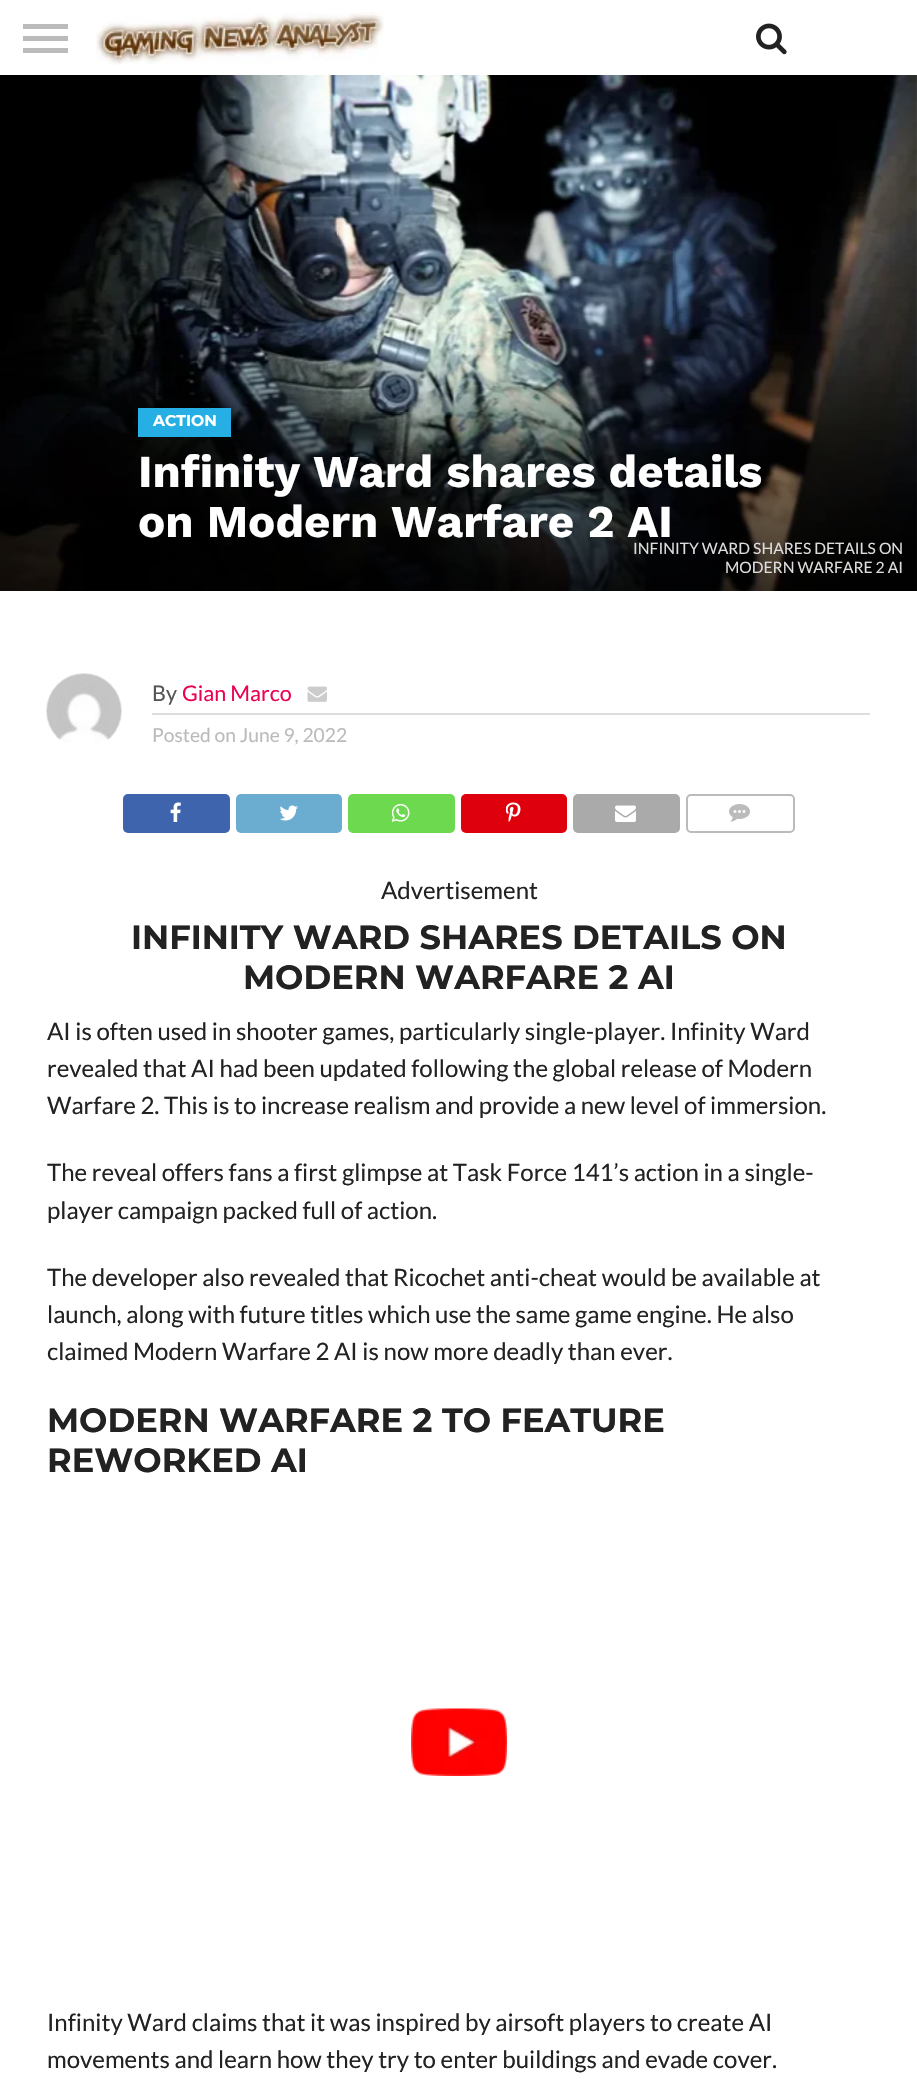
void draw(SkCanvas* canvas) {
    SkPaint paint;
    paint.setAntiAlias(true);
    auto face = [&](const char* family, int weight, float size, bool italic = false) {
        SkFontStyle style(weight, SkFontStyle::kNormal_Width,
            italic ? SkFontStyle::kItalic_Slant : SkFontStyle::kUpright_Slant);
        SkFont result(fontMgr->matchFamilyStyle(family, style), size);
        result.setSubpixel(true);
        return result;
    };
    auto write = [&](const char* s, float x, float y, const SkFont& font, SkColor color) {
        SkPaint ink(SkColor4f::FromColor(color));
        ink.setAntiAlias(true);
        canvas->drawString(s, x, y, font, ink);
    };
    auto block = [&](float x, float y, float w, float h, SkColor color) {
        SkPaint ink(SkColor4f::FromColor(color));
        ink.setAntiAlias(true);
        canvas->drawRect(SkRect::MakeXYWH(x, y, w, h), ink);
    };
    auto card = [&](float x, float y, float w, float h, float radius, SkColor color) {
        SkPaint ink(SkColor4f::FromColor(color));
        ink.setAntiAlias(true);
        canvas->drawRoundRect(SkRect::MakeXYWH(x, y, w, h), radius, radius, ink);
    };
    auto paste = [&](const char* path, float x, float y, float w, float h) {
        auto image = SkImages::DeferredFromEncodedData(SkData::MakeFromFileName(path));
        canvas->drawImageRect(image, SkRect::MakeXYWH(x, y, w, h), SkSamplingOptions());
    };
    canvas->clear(SK_ColorWHITE);
    block(23, 24, 45, 5, SkColorSetRGB(187, 187, 187));
    block(23, 36, 45, 5, SkColorSetRGB(187, 187, 187));
    block(23, 48, 45, 5, SkColorSetRGB(187, 187, 187));
    paste("pic1.png", 96, 12, 288, 53);
    paste("pic2.png", 756, 23, 31, 32);
    paste("pic3.png", 0, 75, 917, 516);
    {
        const SkColor colors[] = {SkColorSetARGB(0, 0, 0, 0), SkColorSetARGB(102, 0, 0, 0), SkColorSetARGB(179, 0, 0, 0)};
        const float stops[] = {0, 0.5f, 1};
        const SkPoint ends[] = {{459, 348}, {459, 591}};
        paint.setShader(SkGradientShader::MakeLinear(ends, colors, stops, 3, SkTileMode::kClamp));
        paint.setAlpha(255);
    }
    canvas->drawRect(SkRect::MakeXYWH(0, 355, 917, 236), paint);
    block(138, 408, 93, 29, SkColorSetRGB(37, 175, 229));
    auto kFont1 = face("Montserrat", 700, 15.6f);
    write("ACTION", 153, 426, kFont1, SK_ColorWHITE);
    auto kFont2 = face("Work Sans", 700, 45.6f);
    write("Infinity Ward shares details", 138, 487, kFont2, SK_ColorWHITE);
    write("on Modern Warfare 2 AI", 138, 537, kFont2, SK_ColorWHITE);
    auto kFont3 = face("Lato", 400, 15.6f);
    write("INFINITY WARD SHARES DETAILS ON", 633, 554, kFont3, SkColorSetRGB(221, 221, 221));
    write("MODERN WARFARE 2 AI", 725, 573, kFont3, SkColorSetRGB(221, 221, 221));
    paste("pic4.png", 46, 673, 76, 70);
    block(152, 713, 718, 2, SkColorSetRGB(221, 221, 221));
    auto kFont4 = face("Lato", 400, 21.5f);
    write("By", 152, 701, kFont4, SkColorSetRGB(85, 85, 85));
    write("Gian Marco", 182, 701, kFont4, SkColorSetRGB(235, 2, 84));
    paste("pic5.png", 307, 686, 20, 16);
    auto kFont5 = face("Lato", 400, 19.25f);
    write("Posted on June 9, 2022", 152, 742, kFont5, SkColorSetRGB(187, 187, 187));
    card(123, 794, 107, 39, 5, SkColorSetRGB(62, 100, 173));
    paste("pic6.png", 170, 802, 11, 20);
    card(236, 794, 106, 39, 5, SkColorSetRGB(106, 173, 209));
    paste("pic7.png", 279, 805, 19, 16);
    card(348, 794, 107, 39, 5, SkColorSetRGB(108, 217, 78));
    paste("pic8.png", 392, 803, 18, 19);
    card(461, 794, 106, 39, 5, SkColorSetRGB(222, 1, 13));
    paste("pic9.png", 506, 802, 15, 20);
    card(573, 794, 107, 39, 5, SkColorSetRGB(170, 170, 170));
    paste("pic10.png", 615, 805, 21, 17);
    paint.setStyle(SkPaint::kStroke_Style);
    paint.setStrokeWidth(2);
    paint.setShader(nullptr);
    paint.setColor(SkColorSetRGB(187, 187, 187));
    canvas->drawRoundRect(SkRect::MakeXYWH(687, 795, 107, 37), 4, 4, paint);
    paste("pic11.png", 729, 804, 21, 18);
    auto kFont6 = face("Lato", 400, 24);
    write("Advertisement", 381, 899, kFont6, SkColorSetRGB(34, 34, 34));
    auto kFont7 = face("Montserrat", 700, 33.6f);
    write("INFINITY WARD SHARES DETAILS ON", 131, 949, kFont7, SkColorSetRGB(34, 34, 34));
    write("MODERN WARFARE 2 AI", 243, 989, kFont7, SkColorSetRGB(34, 34, 34));
    write("AI is often used in shooter games, particularly single-player. Infinity Ward", 47, 1040, kFont6, SkColorSetRGB(34, 34, 34));
    write("revealed that AI had been updated following the global release of Modern", 47, 1077, kFont6, SkColorSetRGB(34, 34, 34));
    write("Warfare 2. This is to increase realism and provide a new level of immersion.", 47, 1114, kFont6, SkColorSetRGB(34, 34, 34));
    write("The reveal offers fans a first glimpse at Task Force 141’s action in a single-", 47, 1181, kFont6, SkColorSetRGB(34, 34, 34));
    write("player campaign packed full of action.", 47, 1219, kFont6, SkColorSetRGB(34, 34, 34));
    write("The developer also revealed that Ricochet anti-cheat would be available at", 47, 1286, kFont6, SkColorSetRGB(34, 34, 34));
    write("launch, along with future titles which use the same game engine. He also", 47, 1323, kFont6, SkColorSetRGB(34, 34, 34));
    write("claimed Modern Warfare 2 AI is now more deadly than ever.", 47, 1360, kFont6, SkColorSetRGB(34, 34, 34));
    write("MODERN WARFARE 2 TO FEATURE", 47, 1432, kFont7, SkColorSetRGB(34, 34, 34));
    write("REWORKED AI", 47, 1472, kFont7, SkColorSetRGB(34, 34, 34));
    paste("pic12.png", 411, 1708, 96, 68);
    write("Infinity Ward claims that it was inspired by airsoft players to create AI", 47, 2031, kFont6, SkColorSetRGB(34, 34, 34));
    write("movements and learn how they try to enter buildings and evade cover.", 47, 2068, kFont6, SkColorSetRGB(34, 34, 34));
}
